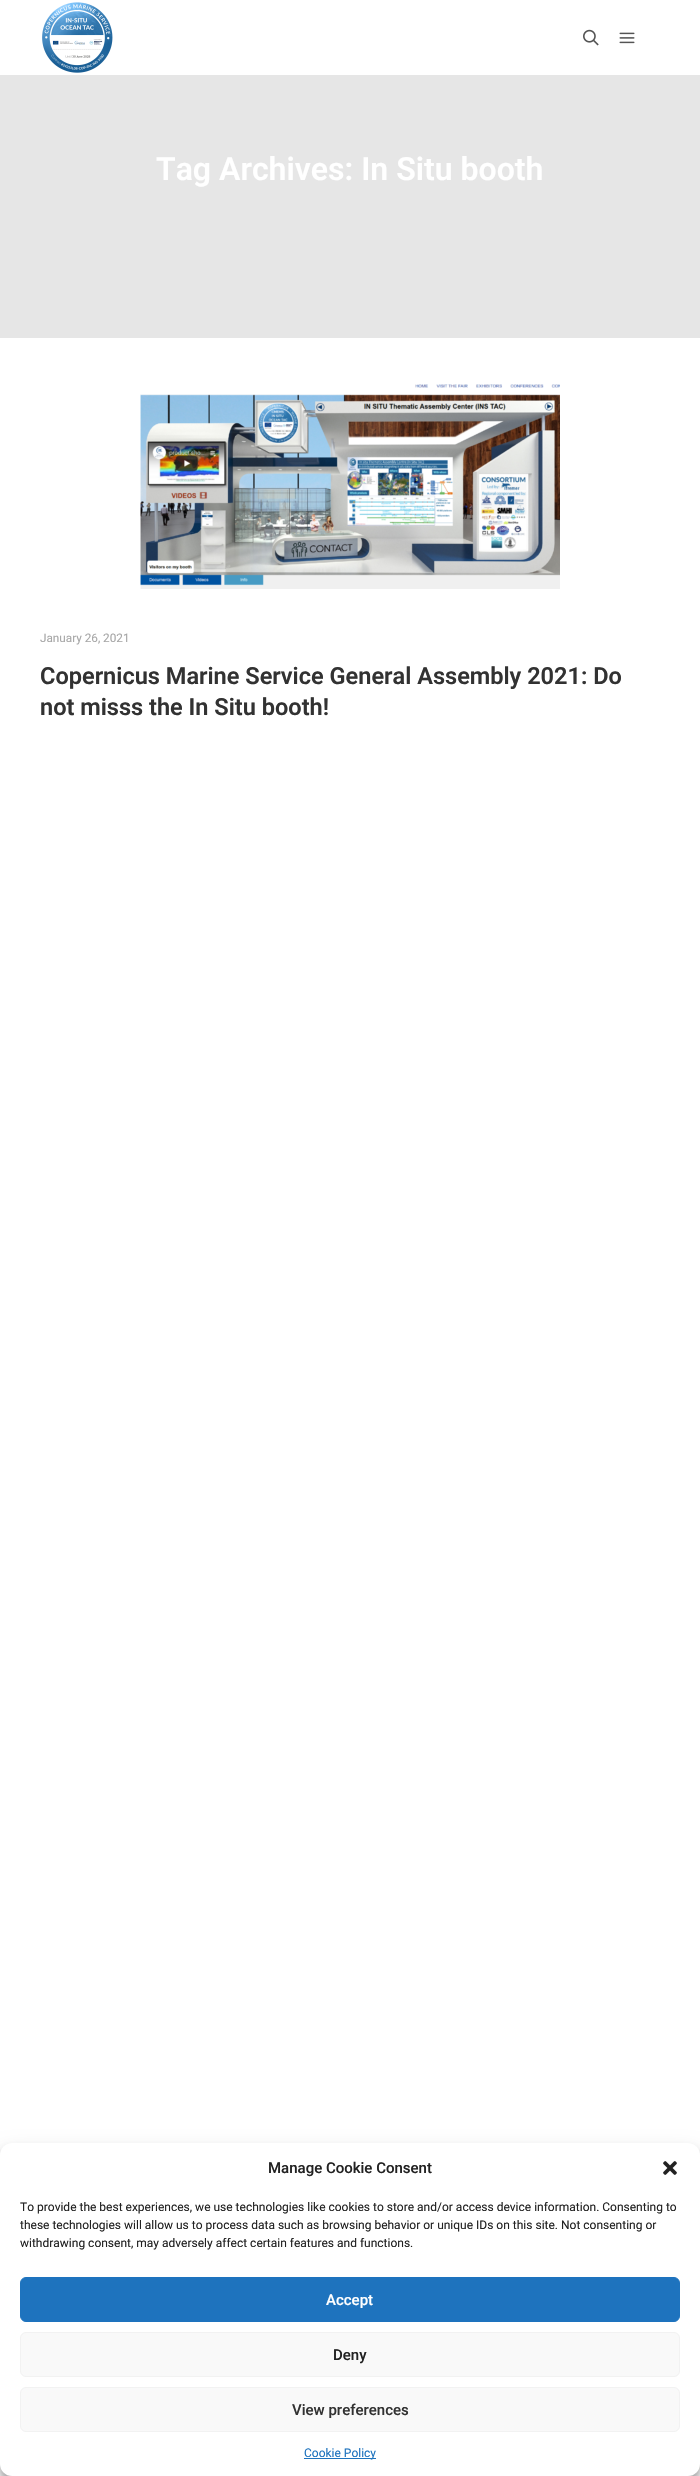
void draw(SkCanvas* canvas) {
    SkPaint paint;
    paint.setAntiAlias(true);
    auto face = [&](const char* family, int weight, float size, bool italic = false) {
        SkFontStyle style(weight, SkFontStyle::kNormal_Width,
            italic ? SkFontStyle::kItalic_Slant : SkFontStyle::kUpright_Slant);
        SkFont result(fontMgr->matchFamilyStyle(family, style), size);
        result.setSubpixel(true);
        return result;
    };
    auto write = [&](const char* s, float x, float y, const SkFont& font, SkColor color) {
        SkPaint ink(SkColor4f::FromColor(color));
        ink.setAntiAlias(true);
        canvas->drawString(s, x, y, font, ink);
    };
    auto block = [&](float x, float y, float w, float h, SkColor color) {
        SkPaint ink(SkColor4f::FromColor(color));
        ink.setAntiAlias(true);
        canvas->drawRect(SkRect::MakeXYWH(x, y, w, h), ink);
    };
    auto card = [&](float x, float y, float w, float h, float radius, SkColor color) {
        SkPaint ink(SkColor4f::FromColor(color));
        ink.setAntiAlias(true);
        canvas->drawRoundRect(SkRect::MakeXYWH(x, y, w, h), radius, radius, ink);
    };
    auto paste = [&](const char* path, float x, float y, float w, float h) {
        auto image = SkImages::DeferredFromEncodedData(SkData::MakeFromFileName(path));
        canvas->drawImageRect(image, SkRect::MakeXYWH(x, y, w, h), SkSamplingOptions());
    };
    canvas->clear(SK_ColorWHITE);
    paste("pic1.png", 42, 2, 71, 71);
    paste("pic2.png", 583, 29, 16, 17);
    paste("pic3.png", 619, 32, 16, 12);
    block(0, 75, 700, 263, SkColorSetRGB(230, 230, 230));
    auto kFont1 = face("Roboto", 600, 32);
    write("Tag Archives: In Situ booth", 156, 180, kFont1, SK_ColorWHITE);
    paste("pic4.png", 140, 384, 420, 205);
    auto kFont2 = face("Roboto", 400, 11.75f);
    write("January 26, 2021", 40, 642, kFont2, SkColorSetRGB(167, 167, 167));
    auto kFont3 = face("Roboto", 600, 23.55f);
    write("Copernicus Marine Service General Assembly 2021: Do", 40, 684, kFont3, SkColorSetRGB(50, 50, 50));
    write("not misss the In Situ booth!", 40, 715, kFont3, SkColorSetRGB(50, 50, 50));
    paint.setColor(SkColorSetARGB(59, 0, 0, 0));
    paint.setMaskFilter(SkMaskFilter::MakeBlur(kNormal_SkBlurStyle, 3));
    canvas->drawRoundRect(SkRect::MakeXYWH(0, 2149, 700, 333), 12, 12, paint);
    paint.setMaskFilter(nullptr);
    paint.setColor(SkColorSetARGB(48, 0, 0, 0));
    paint.setMaskFilter(SkMaskFilter::MakeBlur(kNormal_SkBlurStyle, 10));
    canvas->drawRoundRect(SkRect::MakeXYWH(0, 2153, 700, 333), 12, 12, paint);
    paint.setMaskFilter(nullptr);
    card(0, 2143, 700, 333, 12, SK_ColorWHITE);
    auto kFont4 = face("Roboto", 500, 15);
    write("Manage Cookie Consent", 268, 2173, kFont4, SkColorSetRGB(34, 34, 34));
    paste("pic5.png", 663, 2161, 14, 14);
    auto kFont5 = face("Roboto", 400, 12);
    write("To provide the best experiences, we use technologies like cookies to store and/or access device information. Consenting to", 20, 2211, kFont5, SkColorSetRGB(34, 34, 34));
    write("these technologies will allow us to process data such as browsing behavior or unique IDs on this site. Not consenting or", 20, 2229, kFont5, SkColorSetRGB(34, 34, 34));
    write("withdrawing consent, may adversely affect certain features and functions.", 20, 2247, kFont5, SkColorSetRGB(34, 34, 34));
    paint.setColor(SkColorSetRGB(30, 115, 190));
    canvas->drawRoundRect(SkRect::MakeXYWH(20.5f, 2277.5f, 659, 44), 5.5f, 5.5f, paint);
    paint.setStyle(SkPaint::kStroke_Style);
    paint.setStrokeWidth(1);
    canvas->drawRoundRect(SkRect::MakeXYWH(20.5f, 2277.5f, 659, 44), 5.5f, 5.5f, paint);
    write("Accept", 326, 2305, kFont4, SK_ColorWHITE);
    paint.setStyle(SkPaint::kFill_Style);
    paint.setColor(SkColorSetRGB(249, 249, 249));
    canvas->drawRoundRect(SkRect::MakeXYWH(20.5f, 2332.5f, 659, 44), 5.5f, 5.5f, paint);
    paint.setStyle(SkPaint::kStroke_Style);
    paint.setColor(SkColorSetRGB(242, 242, 242));
    canvas->drawRoundRect(SkRect::MakeXYWH(20.5f, 2332.5f, 659, 44), 5.5f, 5.5f, paint);
    write("Deny", 333, 2360, kFont4, SkColorSetRGB(34, 34, 34));
    paint.setStyle(SkPaint::kFill_Style);
    paint.setColor(SkColorSetRGB(249, 249, 249));
    canvas->drawRoundRect(SkRect::MakeXYWH(20.5f, 2387.5f, 659, 44), 5.5f, 5.5f, paint);
    paint.setStyle(SkPaint::kStroke_Style);
    paint.setColor(SkColorSetRGB(242, 242, 242));
    canvas->drawRoundRect(SkRect::MakeXYWH(20.5f, 2387.5f, 659, 44), 5.5f, 5.5f, paint);
    write("View preferences", 292, 2415, kFont4, SkColorSetRGB(50, 50, 50));
    block(304, 2458, 72, 1, SkColorSetRGB(30, 115, 190));
    write("Cookie Policy", 304, 2457, kFont5, SkColorSetRGB(30, 115, 190));
}
